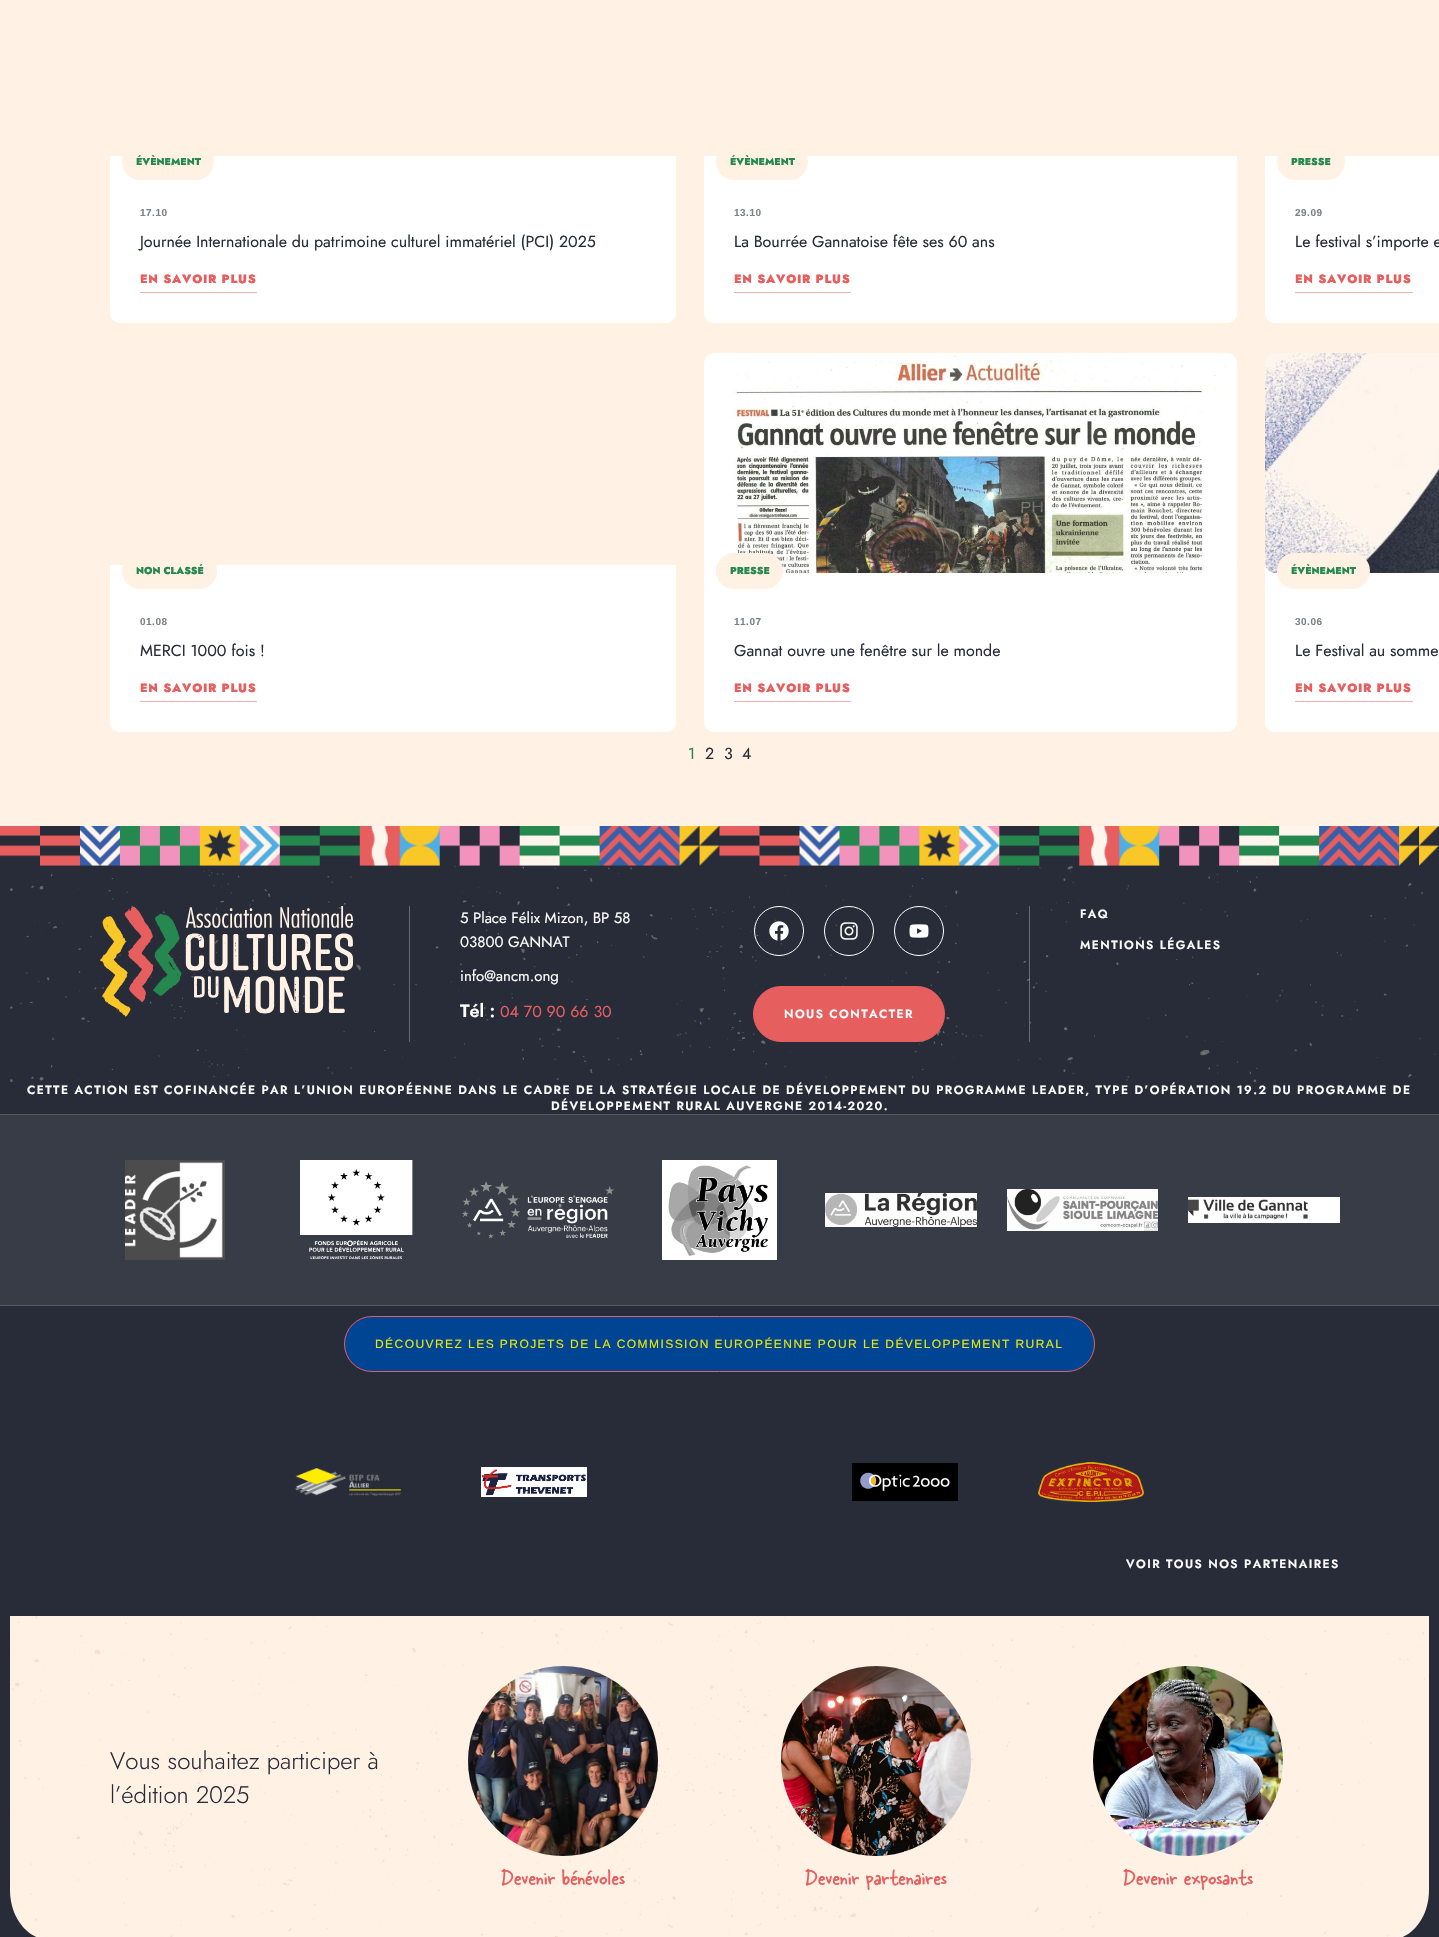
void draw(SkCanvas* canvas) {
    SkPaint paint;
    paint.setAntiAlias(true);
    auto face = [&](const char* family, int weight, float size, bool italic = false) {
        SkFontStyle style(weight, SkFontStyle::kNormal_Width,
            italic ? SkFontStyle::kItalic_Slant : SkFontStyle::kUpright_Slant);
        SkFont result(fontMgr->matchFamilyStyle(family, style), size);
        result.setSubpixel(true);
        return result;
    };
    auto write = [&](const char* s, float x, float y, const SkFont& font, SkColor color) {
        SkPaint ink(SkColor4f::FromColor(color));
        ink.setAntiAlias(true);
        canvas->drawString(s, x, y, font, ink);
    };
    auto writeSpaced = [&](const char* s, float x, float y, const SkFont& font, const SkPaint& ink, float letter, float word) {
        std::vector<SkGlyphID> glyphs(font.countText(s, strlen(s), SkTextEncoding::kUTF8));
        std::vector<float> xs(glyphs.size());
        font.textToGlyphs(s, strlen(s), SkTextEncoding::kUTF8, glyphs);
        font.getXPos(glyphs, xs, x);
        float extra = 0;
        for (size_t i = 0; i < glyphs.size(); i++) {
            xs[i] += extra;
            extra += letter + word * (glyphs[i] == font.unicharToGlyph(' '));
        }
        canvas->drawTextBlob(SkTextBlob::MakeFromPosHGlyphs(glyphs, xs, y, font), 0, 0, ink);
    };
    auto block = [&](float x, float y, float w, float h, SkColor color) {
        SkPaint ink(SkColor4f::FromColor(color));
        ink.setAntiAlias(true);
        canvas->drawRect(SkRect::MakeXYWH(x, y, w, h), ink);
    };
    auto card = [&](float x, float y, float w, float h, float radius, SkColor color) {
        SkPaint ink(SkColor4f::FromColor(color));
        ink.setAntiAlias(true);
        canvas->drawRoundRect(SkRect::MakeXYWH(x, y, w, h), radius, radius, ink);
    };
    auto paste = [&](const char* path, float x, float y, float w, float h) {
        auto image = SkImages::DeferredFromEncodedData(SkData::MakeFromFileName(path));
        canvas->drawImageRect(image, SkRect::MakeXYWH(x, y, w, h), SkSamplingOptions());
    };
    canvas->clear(SkColorSetRGB(255, 241, 228));
    paint.setColor(SK_ColorWHITE);
    canvas->drawPath(SkPathBuilder().moveTo(110, 156).lineTo(676, 156).lineTo(676, 313).cubicTo(676, 318.5f, 671.5f, 323, 666, 323).lineTo(120, 323).cubicTo(114.5f, 323, 110, 318.5f, 110, 313).close().detach(), paint);
    card(122, 144, 92, 36, 18, SkColorSetRGB(255, 241, 228));
    auto kFont1 = face("Jost", 900, 10);
    write("ÉVÈNEMENT", 136, 165, kFont1, SkColorSetRGB(37, 136, 79));
    auto kFont2 = face("Liberation Sans", 700, 10);
    paint.setColor(SkColorSetRGB(125, 128, 136));
    writeSpaced("17.10", 140, 216, kFont2, paint, 0.5f, 0);
    auto kFont3 = face("Jost", 400, 16);
    write("Journée Internationale du patrimoine culturel immatériel (PCI) 2025", 140, 247, kFont3, SkColorSetRGB(39, 44, 56));
    block(140, 292, 117, 1, SkColorSetRGB(243, 175, 175));
    auto kFont4 = face("Jost", 900, 12);
    paint.setColor(SkColorSetRGB(231, 94, 95));
    writeSpaced("EN SAVOIR PLUS", 140, 283, kFont4, paint, 0.75f, 0);
    paint.setColor(SK_ColorWHITE);
    canvas->drawPath(SkPathBuilder().moveTo(704, 156).lineTo(1237, 156).lineTo(1237, 313).cubicTo(1237, 318.5f, 1232.5f, 323, 1227, 323).lineTo(714, 323).cubicTo(708.5f, 323, 704, 318.5f, 704, 313).close().detach(), paint);
    card(716, 144, 92, 36, 18, SkColorSetRGB(255, 241, 228));
    write("ÉVÈNEMENT", 730, 165, kFont1, SkColorSetRGB(37, 136, 79));
    paint.setColor(SkColorSetRGB(125, 128, 136));
    writeSpaced("13.10", 734, 216, kFont2, paint, 0.5f, 0);
    write("La Bourrée Gannatoise fête ses 60 ans", 734, 247, kFont3, SkColorSetRGB(39, 44, 56));
    block(734, 292, 117, 1, SkColorSetRGB(243, 175, 175));
    paint.setColor(SkColorSetRGB(231, 94, 95));
    writeSpaced("EN SAVOIR PLUS", 734, 283, kFont4, paint, 0.75f, 0);
    paint.setColor(SK_ColorWHITE);
    canvas->drawPath(SkPathBuilder().moveTo(1265, 156).lineTo(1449, 156).lineTo(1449, 313).cubicTo(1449, 318.5f, 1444.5f, 323, 1439, 323).lineTo(1275, 323).cubicTo(1269.5f, 323, 1265, 318.5f, 1265, 313).close().detach(), paint);
    card(1277, 144, 68, 36, 18, SkColorSetRGB(255, 241, 228));
    write("PRESSE", 1291, 165, kFont1, SkColorSetRGB(37, 136, 79));
    paint.setColor(SkColorSetRGB(125, 128, 136));
    writeSpaced("29.09", 1295, 216, kFont2, paint, 0.5f, 0);
    write("Le festival s’importe e", 1295, 247, kFont3, SkColorSetRGB(39, 44, 56));
    block(1295, 292, 118, 1, SkColorSetRGB(243, 175, 175));
    paint.setColor(SkColorSetRGB(231, 94, 95));
    writeSpaced("EN SAVOIR PLUS", 1295, 283, kFont4, paint, 0.75f, 0);
    paint.setColor(SK_ColorWHITE);
    canvas->drawPath(SkPathBuilder().moveTo(110, 565).lineTo(676, 565).lineTo(676, 722).cubicTo(676, 727.5f, 671.5f, 732, 666, 732).lineTo(120, 732).cubicTo(114.5f, 732, 110, 727.5f, 110, 722).close().detach(), paint);
    card(122, 553, 95, 36, 18, SkColorSetRGB(255, 241, 228));
    write("NON CLASSÉ", 136, 574, kFont1, SkColorSetRGB(37, 136, 79));
    paint.setColor(SkColorSetRGB(125, 128, 136));
    writeSpaced("01.08", 140, 625, kFont2, paint, 0.5f, 0);
    write("MERCI 1000 fois !", 140, 656, kFont3, SkColorSetRGB(39, 44, 56));
    block(140, 701, 117, 1, SkColorSetRGB(243, 175, 175));
    paint.setColor(SkColorSetRGB(231, 94, 95));
    writeSpaced("EN SAVOIR PLUS", 140, 692, kFont4, paint, 0.75f, 0);
    paint.setColor(SK_ColorWHITE);
    canvas->drawPath(SkPathBuilder().moveTo(704, 565).lineTo(1237, 565).lineTo(1237, 722).cubicTo(1237, 727.5f, 1232.5f, 732, 1227, 732).lineTo(714, 732).cubicTo(708.5f, 732, 704, 727.5f, 704, 722).close().detach(), paint);
    paste("pic1.png", 704, 353, 533, 220);
    card(716, 553, 67, 36, 18, SkColorSetRGB(255, 241, 228));
    write("PRESSE", 730, 574, kFont1, SkColorSetRGB(37, 136, 79));
    paint.setColor(SkColorSetRGB(125, 128, 136));
    writeSpaced("11.07", 734, 625, kFont2, paint, 0.5f, 0);
    write("Gannat ouvre une fenêtre sur le monde", 734, 656, kFont3, SkColorSetRGB(39, 44, 56));
    block(734, 701, 117, 1, SkColorSetRGB(243, 175, 175));
    paint.setColor(SkColorSetRGB(231, 94, 95));
    writeSpaced("EN SAVOIR PLUS", 734, 692, kFont4, paint, 0.75f, 0);
    paint.setColor(SK_ColorWHITE);
    canvas->drawPath(SkPathBuilder().moveTo(1265, 565).lineTo(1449, 565).lineTo(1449, 722).cubicTo(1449, 727.5f, 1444.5f, 732, 1439, 732).lineTo(1275, 732).cubicTo(1269.5f, 732, 1265, 727.5f, 1265, 722).close().detach(), paint);
    paste("pic2.png", 1265, 353, 174, 220);
    card(1277, 553, 93, 36, 18, SkColorSetRGB(255, 241, 228));
    write("ÉVÈNEMENT", 1291, 574, kFont1, SkColorSetRGB(37, 136, 79));
    paint.setColor(SkColorSetRGB(125, 128, 136));
    writeSpaced("30.06", 1295, 625, kFont2, paint, 0.5f, 0);
    write("Le Festival au somme", 1295, 656, kFont3, SkColorSetRGB(39, 44, 56));
    block(1295, 701, 118, 1, SkColorSetRGB(243, 175, 175));
    paint.setColor(SkColorSetRGB(231, 94, 95));
    writeSpaced("EN SAVOIR PLUS", 1295, 692, kFont4, paint, 0.75f, 0);
    write("1", 688, 759, kFont3, SkColorSetRGB(37, 136, 79));
    write("2", 705, 759, kFont3, SkColorSetRGB(39, 44, 56));
    write("3", 724, 759, kFont3, SkColorSetRGB(39, 44, 56));
    write("4", 742, 759, kFont3, SkColorSetRGB(39, 44, 56));
    block(0, 865, 1439, 1072, SkColorSetRGB(39, 44, 56));
    paste("pic3.png", 0, 826, 1439, 40);
    paste("pic4.png", 10, 866, 1426, 216);
    block(409, 906, 1, 136, SkColorSetRGB(104, 107, 116));
    paste("pic5.png", 100, 906, 253, 111);
    block(1029, 906, 1, 136, SkColorSetARGB(77, 255, 255, 255));
    auto kFont5 = face("Jost", 400, 15);
    write("5 Place Félix Mizon, BP 58", 460, 923, kFont5, SK_ColorWHITE);
    write("03800 GANNAT", 460, 947, kFont5, SK_ColorWHITE);
    write("info@ancm.ong", 460, 981, kFont5, SK_ColorWHITE);
    auto kFont6 = face("Jost", 600, 18);
    write("Tél :", 460, 1017, kFont6, SK_ColorWHITE);
    write("04 70 90 66 30", 500, 1017, kFont3, SkColorSetRGB(231, 94, 95));
    paint.setStyle(SkPaint::kStroke_Style);
    paint.setStrokeWidth(1);
    paint.setColor(SK_ColorWHITE);
    canvas->drawCircle(779, 931, 24.5f, paint);
    paste("pic6.png", 769, 921, 20, 20);
    canvas->drawCircle(849, 931, 24.5f, paint);
    paste("pic7.png", 840, 922, 18, 18);
    canvas->drawCircle(919, 931, 24.5f, paint);
    paste("pic8.png", 909, 924, 20, 14);
    paint.setStyle(SkPaint::kFill_Style);
    paint.setColor(SkColorSetRGB(231, 94, 95));
    canvas->drawRoundRect(SkRect::MakeXYWH(753.5f, 986.5f, 191, 55), 27.5f, 27.5f, paint);
    paint.setStyle(SkPaint::kStroke_Style);
    canvas->drawRoundRect(SkRect::MakeXYWH(753.5f, 986.5f, 191, 55), 27.5f, 27.5f, paint);
    auto kFont7 = face("Jost", 600, 12);
    paint.setStyle(SkPaint::kFill_Style);
    paint.setColor(SK_ColorWHITE);
    writeSpaced("NOUS CONTACTER", 784, 1018, kFont7, paint, 1.44f, 0);
    writeSpaced("FAQ", 1080, 918, kFont7, paint, 1.44f, 0);
    writeSpaced("MENTIONS LÉGALES", 1080, 949, kFont7, paint, 1.44f, 0);
    writeSpaced("CETTE ACTION EST COFINANCÉE PAR L’UNION EUROPÉENNE DANS LE CADRE DE LA STRATÉGIE LOCALE DE DÉVELOPPEMENT DU PROGRAMME LEADER, TYPE D’OPÉRATION 19.2 DU PROGRAMME DE", 27, 1094, kFont7, paint, 1.44f, 0);
    writeSpaced("DÉVELOPPEMENT RURAL AUVERGNE 2014-2020.", 551, 1110, kFont7, paint, 1.44f, 0);
    block(0, 1115, 1439, 190, SkColorSetRGB(56, 60, 70));
    block(0, 1114, 1439, 1, SkColorSetRGB(86, 89, 98));
    block(0, 1305, 1439, 1, SkColorSetRGB(86, 89, 98));
    paste("pic9.png", 125, 1160, 100, 100);
    paste("pic10.png", 300, 1160, 113, 100);
    paste("pic11.png", 462, 1181, 152, 58);
    paste("pic12.png", 662, 1160, 115, 100);
    paste("pic13.png", 825, 1193, 152, 34);
    paste("pic14.png", 1007, 1189, 151, 42);
    paste("pic15.png", 1188, 1197, 152, 26);
    paint.setColor(SkColorSetRGB(0, 68, 148));
    canvas->drawRoundRect(SkRect::MakeXYWH(344.5f, 1316.5f, 750, 55), 27.5f, 27.5f, paint);
    paint.setStyle(SkPaint::kStroke_Style);
    paint.setColor(SkColorSetRGB(231, 94, 95));
    canvas->drawRoundRect(SkRect::MakeXYWH(344.5f, 1316.5f, 750, 55), 27.5f, 27.5f, paint);
    auto kFont8 = face("Liberation Sans", 400, 12);
    paint.setStyle(SkPaint::kFill_Style);
    paint.setColor(SkColorSetRGB(233, 228, 11));
    writeSpaced("DÉCOUVREZ LES PROJETS DE LA COMMISSION EUROPÉENNE POUR LE DÉVELOPPEMENT RURAL", 375, 1348, kFont8, paint, 1.44f, 0);
    paste("pic16.png", 295, 1468, 106, 28);
    paste("pic17.png", 481, 1467, 106, 30);
    paste("pic18.png", 852, 1463, 106, 38);
    paste("pic19.png", 1038, 1462, 106, 40);
    paint.setColor(SK_ColorWHITE);
    writeSpaced("VOIR TOUS NOS PARTENAIRES", 1126, 1568, kFont7, paint, 1.44f, 0);
    paint.setColor(SkColorSetRGB(255, 241, 228));
    canvas->drawPath(SkPathBuilder().moveTo(10, 1616).lineTo(1429, 1616).lineTo(1429, 1890).cubicTo(1429, 1918, 1411, 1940, 1389, 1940).lineTo(50, 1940).cubicTo(28, 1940, 10, 1918, 10, 1890).close().detach(), paint);
    paste("pic20.png", 10, 1616, 1415, 321);
    auto kFont9 = face("Jost", 300, 24);
    write("Vous souhaitez participer à", 110, 1769, kFont9, SkColorSetRGB(39, 44, 56));
    write("l’édition 2025", 110, 1803, kFont9, SkColorSetRGB(39, 44, 56));
    paste("pic21.png", 468, 1666, 190, 190);
    auto kFont10 = face("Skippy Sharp", 400, 24);
    write("Devenir bénévoles", 501, 1885, kFont10, SkColorSetRGB(231, 94, 95));
    paste("pic22.png", 781, 1666, 190, 190);
    write("Devenir partenaires", 805, 1885, kFont10, SkColorSetRGB(231, 94, 95));
    paste("pic23.png", 1093, 1666, 190, 190);
    write("Devenir exposants", 1123, 1885, kFont10, SkColorSetRGB(231, 94, 95));
}
